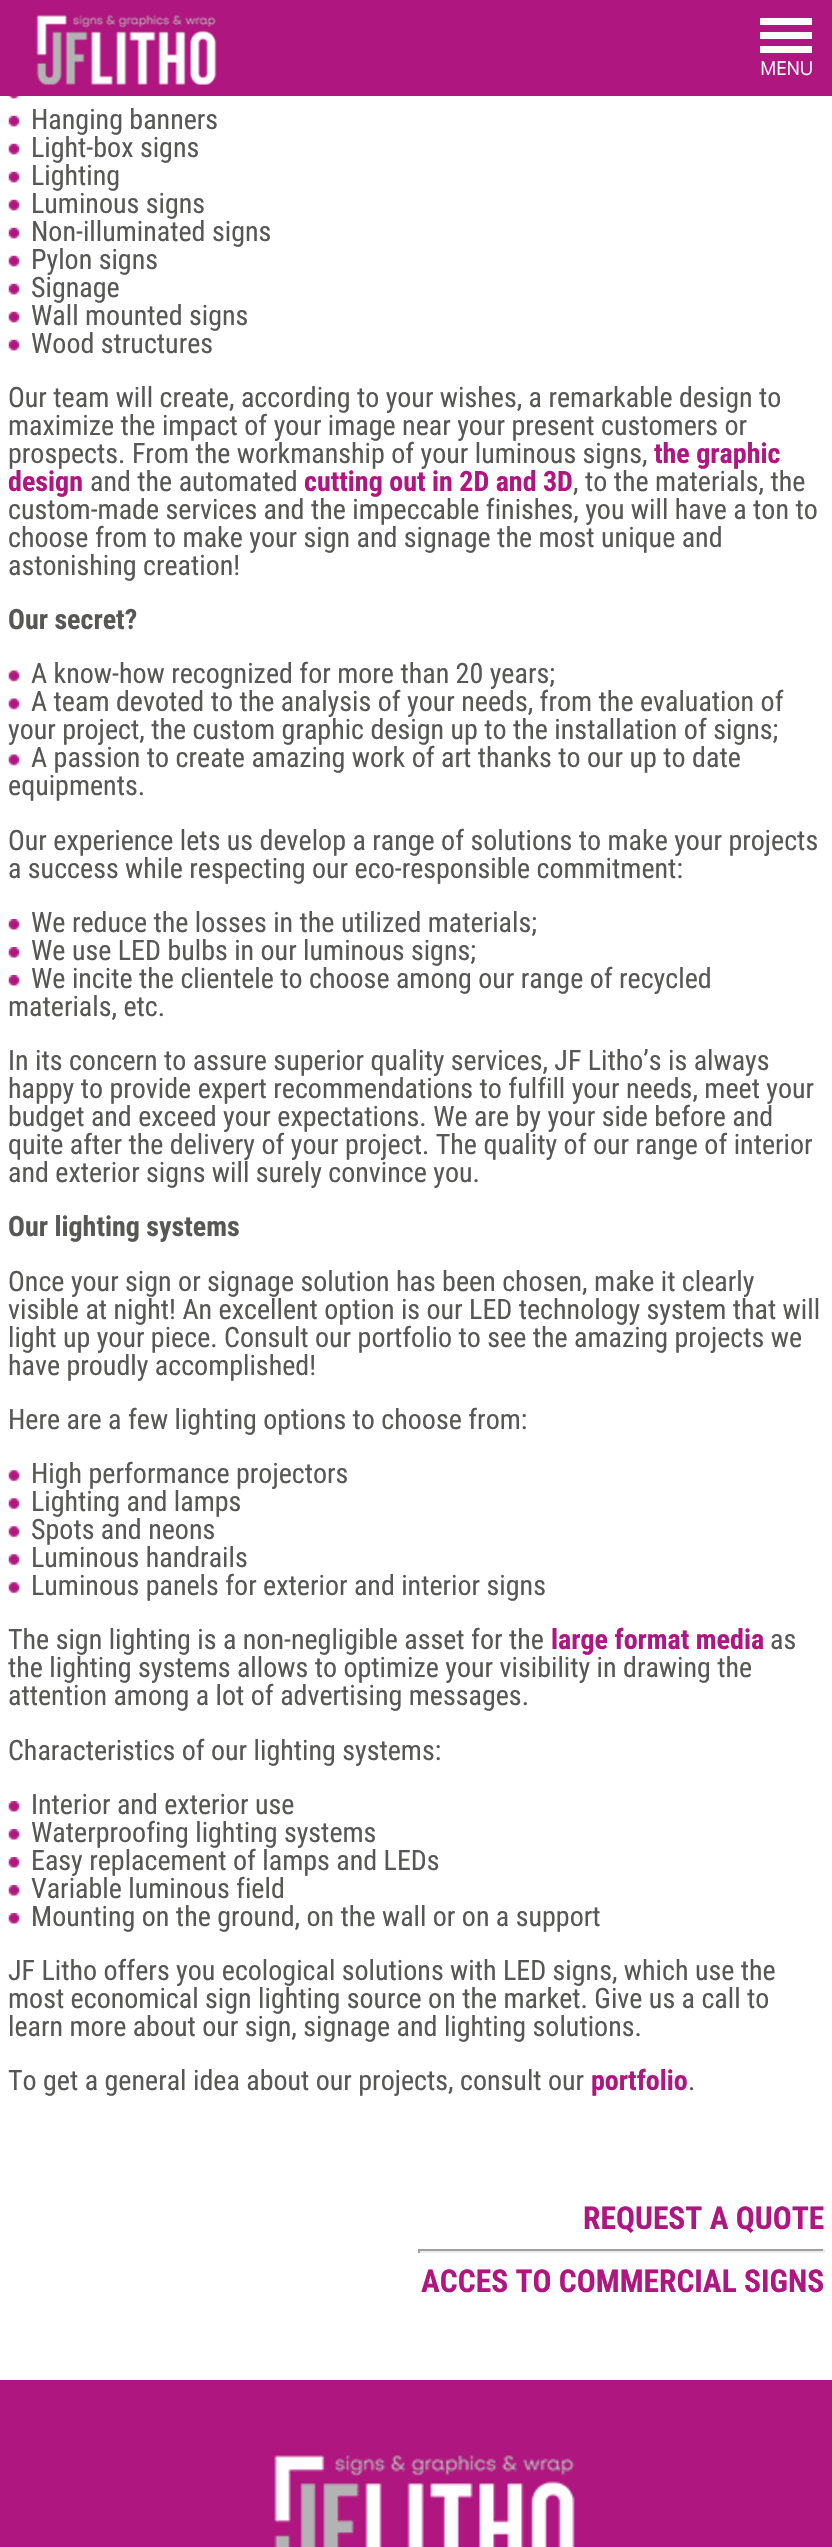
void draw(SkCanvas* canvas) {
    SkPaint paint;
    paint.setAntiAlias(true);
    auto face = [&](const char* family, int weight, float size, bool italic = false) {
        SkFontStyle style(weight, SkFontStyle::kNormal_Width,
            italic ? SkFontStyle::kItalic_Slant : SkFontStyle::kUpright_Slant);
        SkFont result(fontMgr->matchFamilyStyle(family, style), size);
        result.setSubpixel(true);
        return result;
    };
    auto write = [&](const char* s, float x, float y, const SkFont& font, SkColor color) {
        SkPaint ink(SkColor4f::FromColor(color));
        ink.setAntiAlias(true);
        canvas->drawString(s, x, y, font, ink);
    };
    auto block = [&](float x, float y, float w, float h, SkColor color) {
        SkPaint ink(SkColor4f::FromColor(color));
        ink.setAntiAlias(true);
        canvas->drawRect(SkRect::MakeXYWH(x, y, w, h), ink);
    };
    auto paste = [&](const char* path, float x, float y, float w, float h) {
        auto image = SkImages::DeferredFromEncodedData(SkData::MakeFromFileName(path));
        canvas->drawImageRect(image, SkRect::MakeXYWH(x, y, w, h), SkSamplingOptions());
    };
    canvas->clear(SK_ColorWHITE);
    block(0, 0, 832, 96, SkColorSetRGB(176, 22, 128));
    paste("pic1.png", 36, 14, 181, 71);
    block(760, 18, 52, 7, SK_ColorWHITE);
    block(760, 32, 52, 7, SK_ColorWHITE);
    block(760, 46, 52, 7, SK_ColorWHITE);
    auto kFont1 = face("Open Sans", 700, 18.5f);
    write("MENU", 760, 75, kFont1, SK_ColorWHITE);
    paste("pic2.png", 8, 96, 12, 3);
    paste("pic3.png", 8, 115, 12, 12);
    auto kFont2 = face("Roboto Condensed", 400, 28);
    write("Hanging banners", 31, 129, kFont2, SkColorSetRGB(87, 87, 86));
    paste("pic3.png", 8, 143, 12, 12);
    write("Light-box signs", 31, 157, kFont2, SkColorSetRGB(87, 87, 86));
    paste("pic3.png", 8, 171, 12, 12);
    write("Lighting", 31, 185, kFont2, SkColorSetRGB(87, 87, 86));
    paste("pic3.png", 8, 199, 12, 12);
    write("Luminous signs", 31, 213, kFont2, SkColorSetRGB(87, 87, 86));
    paste("pic3.png", 8, 227, 12, 12);
    write("Non-illuminated signs", 31, 241, kFont2, SkColorSetRGB(87, 87, 86));
    paste("pic3.png", 8, 255, 12, 12);
    write("Pylon signs", 31, 269, kFont2, SkColorSetRGB(87, 87, 86));
    paste("pic3.png", 8, 283, 12, 12);
    write("Signage", 31, 297, kFont2, SkColorSetRGB(87, 87, 86));
    paste("pic3.png", 8, 311, 12, 12);
    write("Wall mounted signs", 31, 325, kFont2, SkColorSetRGB(87, 87, 86));
    paste("pic3.png", 8, 339, 12, 12);
    write("Wood structures", 31, 353, kFont2, SkColorSetRGB(87, 87, 86));
    write("Our team will create, according to your wishes, a remarkable design to", 8, 407, kFont2, SkColorSetRGB(87, 87, 86));
    write("maximize the impact of your image near your present customers or", 8, 435, kFont2, SkColorSetRGB(87, 87, 86));
    write("prospects. From the workmanship of your luminous signs,", 8, 463, kFont2, SkColorSetRGB(87, 87, 86));
    auto kFont3 = face("Roboto Condensed", 700, 28);
    write("the graphic", 654, 463, kFont3, SkColorSetRGB(176, 22, 128));
    write("design", 8, 491, kFont3, SkColorSetRGB(176, 22, 128));
    write("and the automated", 90, 491, kFont2, SkColorSetRGB(87, 87, 86));
    write("cutting out in 2D and 3D", 304, 491, kFont3, SkColorSetRGB(176, 22, 128));
    write(", to the materials, the", 573, 491, kFont2, SkColorSetRGB(87, 87, 86));
    write("custom-made services and the impeccable finishes, you will have a ton to", 8, 519, kFont2, SkColorSetRGB(87, 87, 86));
    write("choose from to make your sign and signage the most unique and", 8, 547, kFont2, SkColorSetRGB(87, 87, 86));
    write("astonishing creation!", 8, 575, kFont2, SkColorSetRGB(87, 87, 86));
    write("Our secret?", 8, 629, kFont3, SkColorSetRGB(87, 87, 86));
    paste("pic4.png", 8, 670, 12, 12);
    write("A know-how recognized for more than 20 years;", 31, 683, kFont2, SkColorSetRGB(87, 87, 86));
    paste("pic5.png", 8, 698, 12, 12);
    write("A team devoted to the analysis of your needs, from the evaluation of", 31, 711, kFont2, SkColorSetRGB(87, 87, 86));
    write("your project, the custom graphic design up to the installation of signs;", 8, 739, kFont2, SkColorSetRGB(87, 87, 86));
    paste("pic5.png", 8, 754, 12, 12);
    write("A passion to create amazing work of art thanks to our up to date", 31, 767, kFont2, SkColorSetRGB(87, 87, 86));
    write("equipments.", 8, 795, kFont2, SkColorSetRGB(87, 87, 86));
    write("Our experience lets us develop a range of solutions to make your projects", 8, 850, kFont2, SkColorSetRGB(87, 87, 86));
    write("a success while respecting our eco-responsible commitment:", 8, 878, kFont2, SkColorSetRGB(87, 87, 86));
    paste("pic6.png", 8, 919, 12, 11);
    write("We reduce the losses in the utilized materials;", 31, 932, kFont2, SkColorSetRGB(87, 87, 86));
    paste("pic6.png", 8, 947, 12, 11);
    write("We use LED bulbs in our luminous signs;", 31, 960, kFont2, SkColorSetRGB(87, 87, 86));
    paste("pic6.png", 8, 975, 12, 11);
    write("We incite the clientele to choose among our range of recycled", 31, 988, kFont2, SkColorSetRGB(87, 87, 86));
    write("materials, etc.", 8, 1016, kFont2, SkColorSetRGB(87, 87, 86));
    write("In its concern to assure superior quality services, JF Litho’s is always", 8, 1070, kFont2, SkColorSetRGB(87, 87, 86));
    write("happy to provide expert recommendations to fulfill your needs, meet your", 8, 1098, kFont2, SkColorSetRGB(87, 87, 86));
    write("budget and exceed your expectations. We are by your side before and", 8, 1126, kFont2, SkColorSetRGB(87, 87, 86));
    write("quite after the delivery of your project. The quality of our range of interior", 8, 1154, kFont2, SkColorSetRGB(87, 87, 86));
    write("and exterior signs will surely convince you.", 8, 1182, kFont2, SkColorSetRGB(87, 87, 86));
    write("Our lighting systems", 8, 1236, kFont3, SkColorSetRGB(87, 87, 86));
    write("Once your sign or signage solution has been chosen, make it clearly", 8, 1291, kFont2, SkColorSetRGB(87, 87, 86));
    write("visible at night! An excellent option is our LED technology system that will", 8, 1319, kFont2, SkColorSetRGB(87, 87, 86));
    write("light up your piece. Consult our portfolio to see the amazing projects we", 8, 1347, kFont2, SkColorSetRGB(87, 87, 86));
    write("have proudly accomplished!", 8, 1375, kFont2, SkColorSetRGB(87, 87, 86));
    write("Here are a few lighting options to choose from:", 8, 1429, kFont2, SkColorSetRGB(87, 87, 86));
    paste("pic7.png", 8, 1470, 12, 12);
    write("High performance projectors", 31, 1483, kFont2, SkColorSetRGB(87, 87, 86));
    paste("pic7.png", 8, 1498, 12, 12);
    write("Lighting and lamps", 31, 1511, kFont2, SkColorSetRGB(87, 87, 86));
    paste("pic7.png", 8, 1526, 12, 12);
    write("Spots and neons", 31, 1539, kFont2, SkColorSetRGB(87, 87, 86));
    paste("pic7.png", 8, 1554, 12, 12);
    write("Luminous handrails", 31, 1567, kFont2, SkColorSetRGB(87, 87, 86));
    paste("pic7.png", 8, 1582, 12, 12);
    write("Luminous panels for exterior and interior signs", 31, 1595, kFont2, SkColorSetRGB(87, 87, 86));
    write("The sign lighting is a non-negligible asset for the", 8, 1649, kFont2, SkColorSetRGB(87, 87, 86));
    write("large format media", 551, 1649, kFont3, SkColorSetRGB(176, 22, 128));
    write("as", 770, 1649, kFont2, SkColorSetRGB(87, 87, 86));
    write("the lighting systems allows to optimize your visibility in drawing the", 8, 1677, kFont2, SkColorSetRGB(87, 87, 86));
    write("attention among a lot of advertising messages.", 8, 1705, kFont2, SkColorSetRGB(87, 87, 86));
    write("Characteristics of our lighting systems:", 8, 1760, kFont2, SkColorSetRGB(87, 87, 86));
    paste("pic6.png", 8, 1801, 12, 11);
    write("Interior and exterior use", 31, 1814, kFont2, SkColorSetRGB(87, 87, 86));
    paste("pic6.png", 8, 1829, 12, 11);
    write("Waterproofing lighting systems", 31, 1842, kFont2, SkColorSetRGB(87, 87, 86));
    paste("pic6.png", 8, 1857, 12, 11);
    write("Easy replacement of lamps and LEDs", 31, 1870, kFont2, SkColorSetRGB(87, 87, 86));
    paste("pic6.png", 8, 1885, 12, 11);
    write("Variable luminous field", 31, 1898, kFont2, SkColorSetRGB(87, 87, 86));
    paste("pic6.png", 8, 1913, 12, 11);
    write("Mounting on the ground, on the wall or on a support", 31, 1926, kFont2, SkColorSetRGB(87, 87, 86));
    write("JF Litho offers you ecological solutions with LED signs, which use the", 8, 1980, kFont2, SkColorSetRGB(87, 87, 86));
    write("most economical sign lighting source on the market. Give us a call to", 8, 2008, kFont2, SkColorSetRGB(87, 87, 86));
    write("learn more about our sign, signage and lighting solutions.", 8, 2036, kFont2, SkColorSetRGB(87, 87, 86));
    write("To get a general idea about our projects, consult our", 8, 2090, kFont2, SkColorSetRGB(87, 87, 86));
    write("portfolio", 591, 2090, kFont3, SkColorSetRGB(176, 22, 128));
    write(".", 688, 2090, kFont2, SkColorSetRGB(87, 87, 86));
    auto kFont4 = face("Roboto Condensed", 700, 31.5f);
    write("REQUEST A QUOTE", 583, 2229, kFont4, SkColorSetRGB(176, 22, 128));
    block(418, 2249, 406, 2, SkColorSetRGB(159, 159, 159));
    block(823, 2249, 2, 4, SkColorSetRGB(238, 238, 238));
    block(418, 2251, 406, 2, SkColorSetRGB(238, 238, 238));
    block(418, 2249, 2, 4, SkColorSetRGB(159, 159, 159));
    write("ACCES TO COMMERCIAL SIGNS", 421, 2292, kFont4, SkColorSetRGB(176, 22, 128));
    block(0, 2380, 832, 167, SkColorSetRGB(176, 22, 128));
    paste("pic8.png", 274, 2455, 301, 92);
}
